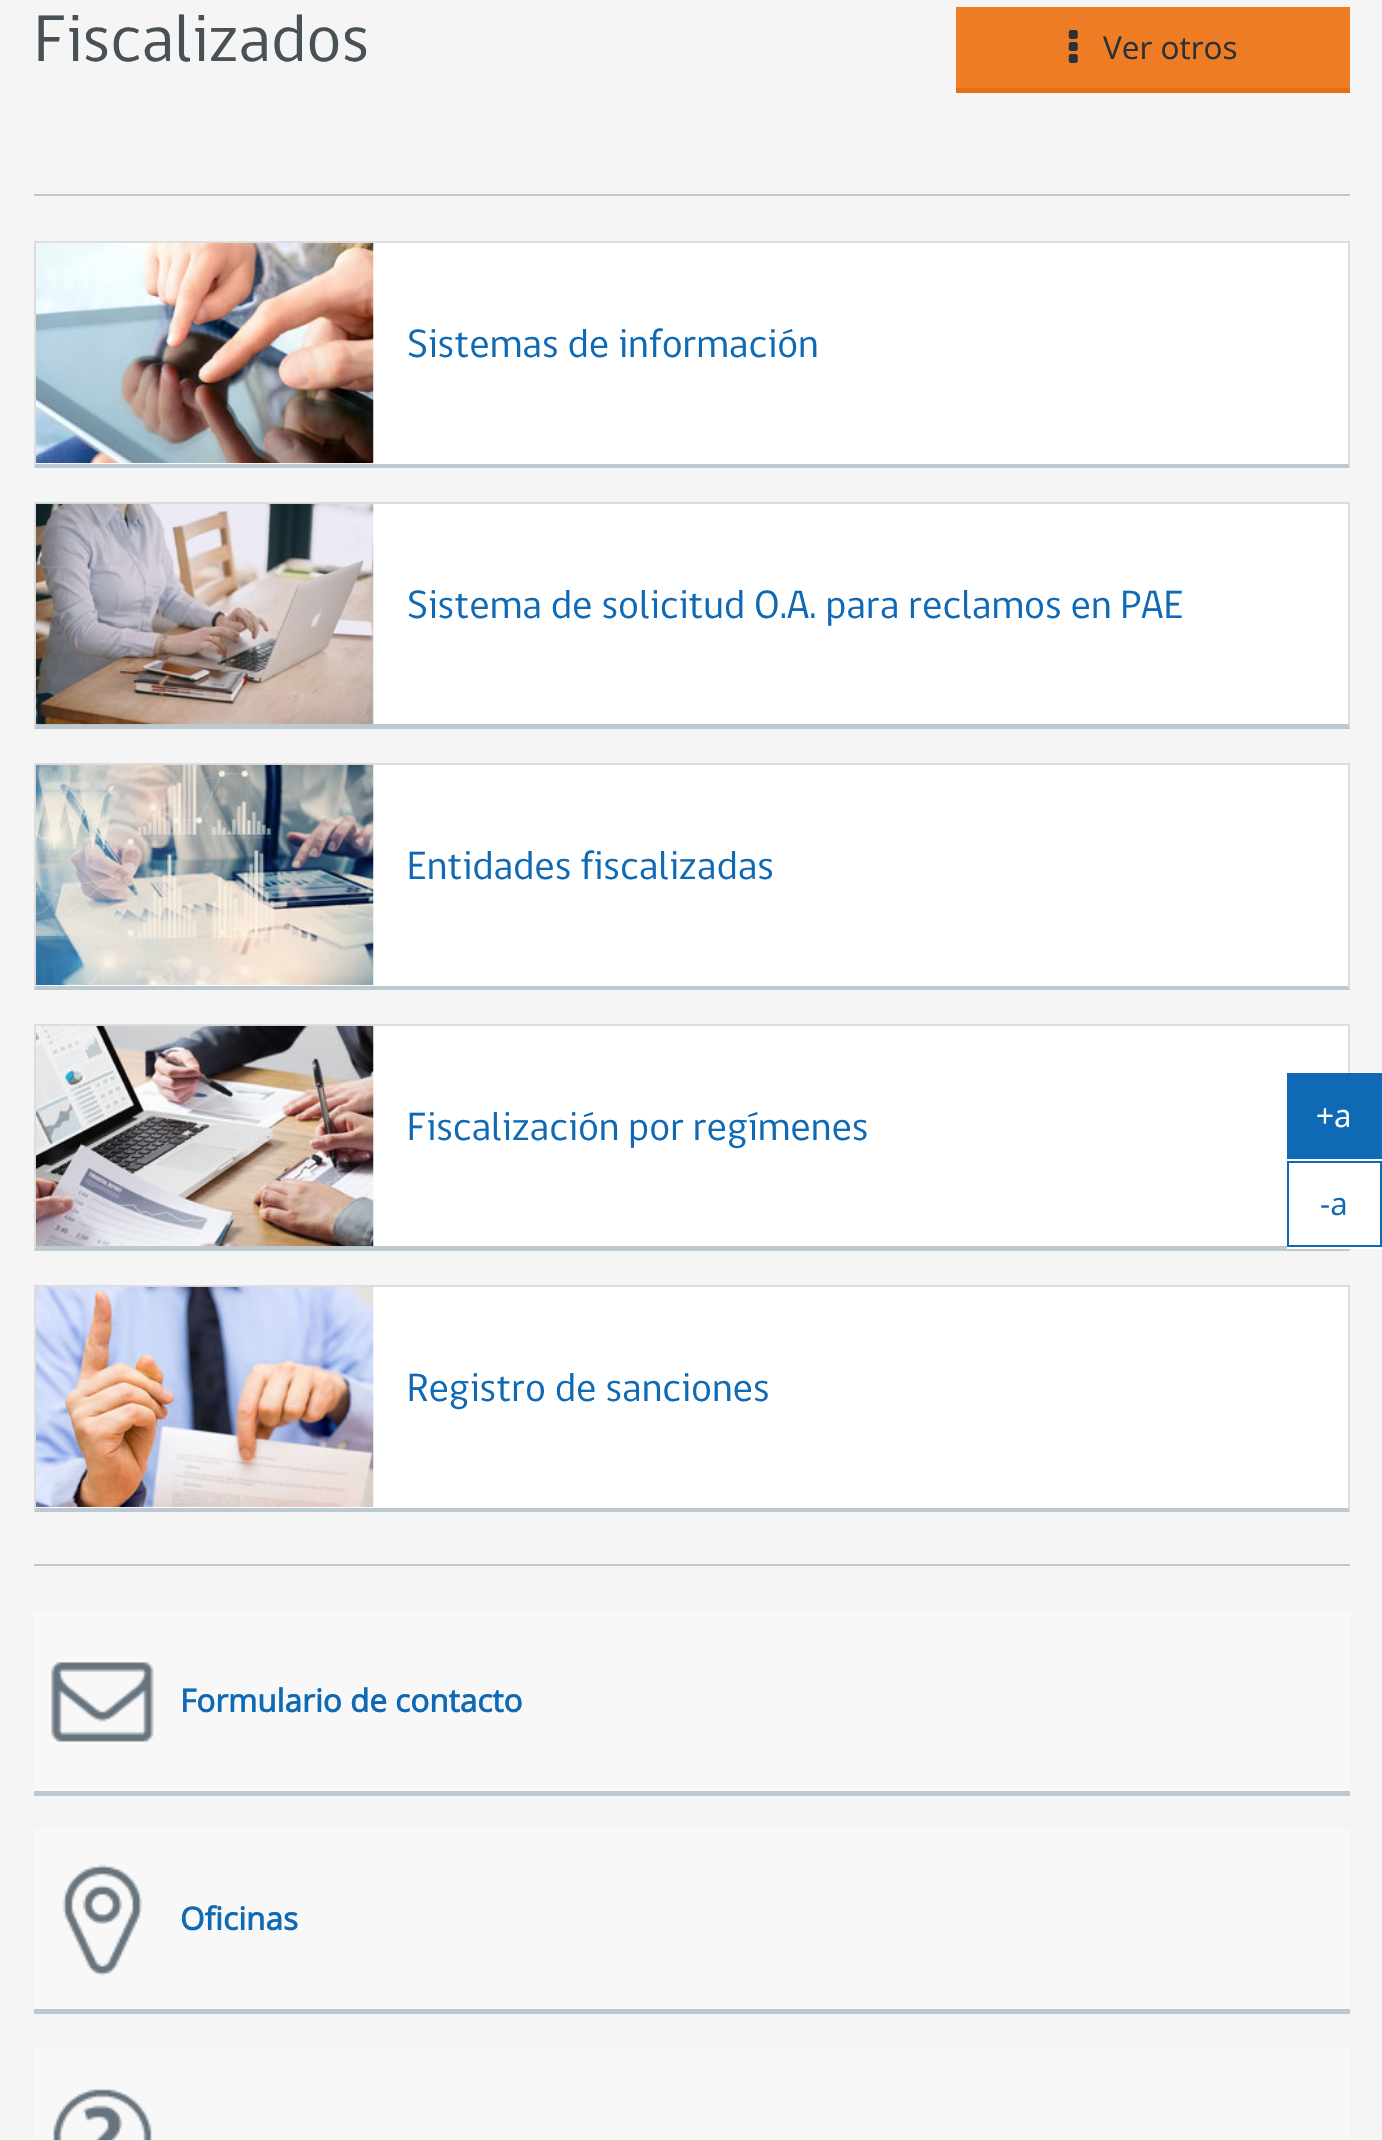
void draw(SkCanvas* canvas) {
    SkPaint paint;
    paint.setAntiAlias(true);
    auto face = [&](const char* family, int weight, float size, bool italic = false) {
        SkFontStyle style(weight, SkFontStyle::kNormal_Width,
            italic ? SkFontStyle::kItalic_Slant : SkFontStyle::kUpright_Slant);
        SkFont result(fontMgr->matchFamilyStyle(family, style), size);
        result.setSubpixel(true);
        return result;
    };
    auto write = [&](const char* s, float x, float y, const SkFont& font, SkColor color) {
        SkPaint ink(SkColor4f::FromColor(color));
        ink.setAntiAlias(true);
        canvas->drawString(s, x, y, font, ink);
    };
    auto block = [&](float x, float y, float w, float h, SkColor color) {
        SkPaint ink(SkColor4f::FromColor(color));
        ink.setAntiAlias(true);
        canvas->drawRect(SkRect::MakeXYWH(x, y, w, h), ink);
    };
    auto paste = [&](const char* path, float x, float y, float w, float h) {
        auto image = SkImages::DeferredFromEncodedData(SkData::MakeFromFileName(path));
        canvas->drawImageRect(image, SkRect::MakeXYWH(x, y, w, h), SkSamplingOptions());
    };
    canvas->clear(SkColorSetRGB(245, 245, 245));
    auto kFont1 = face("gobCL", 400, 67.5f);
    write("Fiscalizados", 34, 61, kFont1, SkColorSetRGB(71, 81, 86));
    block(956, 7, 394, 81, SkColorSetRGB(237, 124, 37));
    block(956, 88, 394, 5, SkColorSetRGB(230, 111, 19));
    paste("pic1.png", 1068, 30, 10, 33);
    auto kFont2 = face("Open Sans", 400, 31.5f);
    write("Ver otros", 1103, 59, kFont2, SkColorSetRGB(43, 49, 53));
    block(34, 194, 1316, 2, SkColorSetRGB(189, 201, 209));
    block(36, 243, 1312, 221, SK_ColorWHITE);
    block(34, 241, 1316, 2, SkColorSetRGB(221, 221, 221));
    paint.setColor(SkColorSetRGB(221, 221, 221));
    canvas->drawPath(SkPathBuilder().moveTo(1350, 241).lineTo(1350, 468).lineTo(1348, 464).lineTo(1348, 243).close().detach(), paint);
    paint.setColor(SkColorSetRGB(189, 201, 209));
    canvas->drawPath(SkPathBuilder().moveTo(1350, 468).lineTo(34, 468).lineTo(36, 464).lineTo(1348, 464).close().detach(), paint);
    paint.setColor(SkColorSetRGB(221, 221, 221));
    canvas->drawPath(SkPathBuilder().moveTo(34, 468).lineTo(34, 241).lineTo(36, 243).lineTo(36, 464).close().detach(), paint);
    paste("pic2.png", 36, 242, 338, 222);
    auto kFont3 = face("gobCL", 400, 40.5f);
    write("Sistemas de información", 407, 357, kFont3, SkColorSetRGB(15, 105, 180));
    block(373, 504, 975, 220, SK_ColorWHITE);
    block(34, 502, 1316, 2, SkColorSetRGB(221, 221, 221));
    canvas->drawPath(SkPathBuilder().moveTo(1350, 502).lineTo(1350, 729).lineTo(1348, 724).lineTo(1348, 504).close().detach(), paint);
    paint.setColor(SkColorSetRGB(189, 201, 209));
    canvas->drawPath(SkPathBuilder().moveTo(1350, 729).lineTo(34, 729).lineTo(36, 724).lineTo(1348, 724).close().detach(), paint);
    paint.setColor(SkColorSetRGB(221, 221, 221));
    canvas->drawPath(SkPathBuilder().moveTo(34, 729).lineTo(34, 502).lineTo(36, 504).lineTo(36, 724).close().detach(), paint);
    paste("pic3.png", 36, 503, 338, 222);
    write("Sistema de solicitud O.A. para reclamos en PAE", 407, 618, kFont3, SkColorSetRGB(15, 105, 180));
    block(36, 765, 1312, 221, SK_ColorWHITE);
    block(34, 763, 1316, 2, SkColorSetRGB(221, 221, 221));
    canvas->drawPath(SkPathBuilder().moveTo(1350, 763).lineTo(1350, 990).lineTo(1348, 986).lineTo(1348, 765).close().detach(), paint);
    paint.setColor(SkColorSetRGB(189, 201, 209));
    canvas->drawPath(SkPathBuilder().moveTo(1350, 990).lineTo(34, 990).lineTo(36, 986).lineTo(1348, 986).close().detach(), paint);
    paint.setColor(SkColorSetRGB(221, 221, 221));
    canvas->drawPath(SkPathBuilder().moveTo(34, 990).lineTo(34, 763).lineTo(36, 765).lineTo(36, 986).close().detach(), paint);
    paste("pic4.png", 36, 764, 338, 222);
    write("Entidades fiscalizadas", 407, 879, kFont3, SkColorSetRGB(15, 105, 180));
    block(373, 1026, 975, 220, SK_ColorWHITE);
    block(34, 1024, 1316, 2, SkColorSetRGB(221, 221, 221));
    canvas->drawPath(SkPathBuilder().moveTo(1350, 1024).lineTo(1350, 1251).lineTo(1348, 1246).lineTo(1348, 1026).close().detach(), paint);
    paint.setColor(SkColorSetRGB(189, 201, 209));
    canvas->drawPath(SkPathBuilder().moveTo(1350, 1251).lineTo(34, 1251).lineTo(36, 1246).lineTo(1348, 1246).close().detach(), paint);
    paint.setColor(SkColorSetRGB(221, 221, 221));
    canvas->drawPath(SkPathBuilder().moveTo(34, 1251).lineTo(34, 1024).lineTo(36, 1026).lineTo(36, 1246).close().detach(), paint);
    paste("pic5.png", 36, 1025, 338, 222);
    write("Fiscalización por regímenes", 407, 1140, kFont3, SkColorSetRGB(15, 105, 180));
    block(36, 1287, 1312, 221, SK_ColorWHITE);
    block(34, 1285, 1316, 2, SkColorSetRGB(221, 221, 221));
    canvas->drawPath(SkPathBuilder().moveTo(1350, 1285).lineTo(1350, 1512).lineTo(1348, 1508).lineTo(1348, 1287).close().detach(), paint);
    paint.setColor(SkColorSetRGB(189, 201, 209));
    canvas->drawPath(SkPathBuilder().moveTo(1350, 1512).lineTo(34, 1512).lineTo(36, 1508).lineTo(1348, 1508).close().detach(), paint);
    paint.setColor(SkColorSetRGB(221, 221, 221));
    canvas->drawPath(SkPathBuilder().moveTo(34, 1512).lineTo(34, 1285).lineTo(36, 1287).lineTo(36, 1508).close().detach(), paint);
    paste("pic6.png", 36, 1286, 338, 222);
    write("Registro de sanciones", 407, 1401, kFont3, SkColorSetRGB(15, 105, 180));
    block(34, 1564, 1316, 2, SkColorSetRGB(189, 201, 209));
    block(34, 1611, 1316, 180, SkColorSetRGB(248, 248, 248));
    block(34, 1791, 1316, 5, SkColorSetRGB(189, 201, 209));
    paste("pic7.png", 51, 1662, 103, 80);
    auto kFont4 = face("Open Sans", 700, 31.5f);
    write("Formulario de contacto", 180, 1712, kFont4, SkColorSetRGB(15, 105, 180));
    block(34, 1829, 1316, 180, SkColorSetRGB(248, 248, 248));
    block(34, 2009, 1316, 5, SkColorSetRGB(189, 201, 209));
    paste("pic8.png", 62, 1864, 81, 112);
    write("Oficinas", 180, 1930, kFont4, SkColorSetRGB(15, 105, 180));
    block(34, 2048, 1316, 92, SkColorSetRGB(248, 248, 248));
    paste("pic9.png", 53, 2089, 99, 51);
    block(1287, 1159, 95, 90, SK_ColorWHITE);
    block(1287, 1073, 95, 86, SkColorSetRGB(15, 105, 180));
    write("+a", 1316, 1127, kFont2, SK_ColorWHITE);
    paint.setStyle(SkPaint::kStroke_Style);
    paint.setStrokeWidth(2);
    paint.setColor(SkColorSetRGB(15, 105, 180));
    canvas->drawRect(SkRect::MakeXYWH(1288, 1162, 93, 84), paint);
    write("-a", 1320, 1215, kFont2, SkColorSetRGB(15, 105, 180));
}
